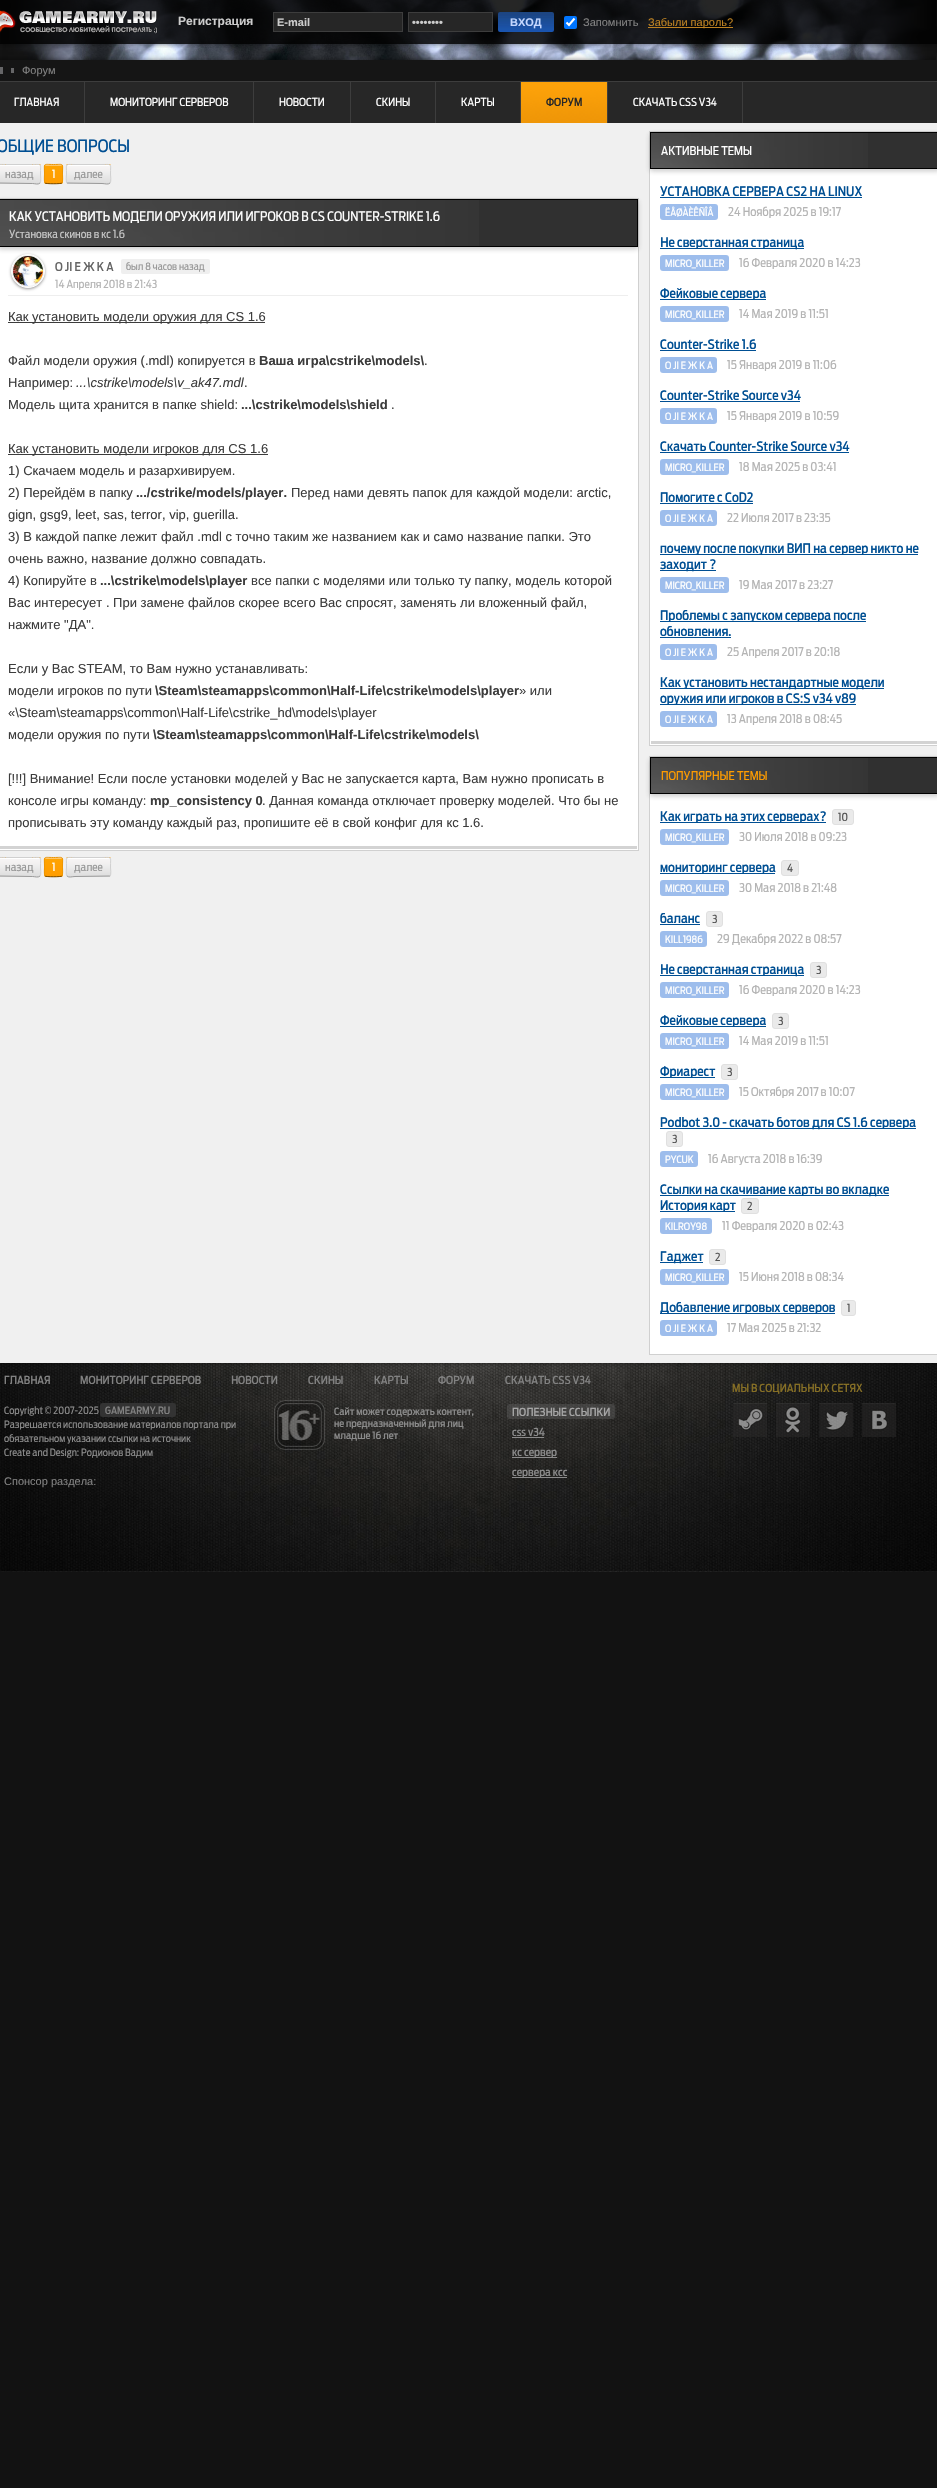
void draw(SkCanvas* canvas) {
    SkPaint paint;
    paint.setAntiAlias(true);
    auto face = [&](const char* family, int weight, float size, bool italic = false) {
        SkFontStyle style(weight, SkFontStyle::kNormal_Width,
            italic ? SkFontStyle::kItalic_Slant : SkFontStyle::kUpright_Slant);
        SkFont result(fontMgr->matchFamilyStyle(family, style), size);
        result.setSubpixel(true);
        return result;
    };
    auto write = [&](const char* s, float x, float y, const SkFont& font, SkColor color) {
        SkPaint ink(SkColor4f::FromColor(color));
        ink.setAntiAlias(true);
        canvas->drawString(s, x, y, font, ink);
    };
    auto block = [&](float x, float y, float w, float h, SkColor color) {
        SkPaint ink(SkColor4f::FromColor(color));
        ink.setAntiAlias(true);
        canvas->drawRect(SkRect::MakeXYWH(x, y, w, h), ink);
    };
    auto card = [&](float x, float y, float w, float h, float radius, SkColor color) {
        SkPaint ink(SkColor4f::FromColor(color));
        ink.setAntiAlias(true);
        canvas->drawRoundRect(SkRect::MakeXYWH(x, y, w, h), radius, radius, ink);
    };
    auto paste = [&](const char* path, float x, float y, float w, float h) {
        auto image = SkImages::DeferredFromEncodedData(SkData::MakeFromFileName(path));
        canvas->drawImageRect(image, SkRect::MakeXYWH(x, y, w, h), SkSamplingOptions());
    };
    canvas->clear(SkColorSetRGB(18, 18, 18));
    paste("pic1.png", 0, 0, 937, 60);
    canvas->save();
    canvas->clipRect(SkRect::MakeXYWH(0, 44, 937, 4));
    paint.setColor(SkColorSetARGB(128, 0, 0, 0));
    paint.setMaskFilter(SkMaskFilter::MakeBlur(kNormal_SkBlurStyle, 2.5f));
    canvas->drawRect(SkRect::MakeXYWH(0, 0, 937, 44), paint);
    paint.setMaskFilter(nullptr);
    canvas->restore();
    block(0, 0, 937, 44, SkColorSetARGB(217, 0, 0, 0));
    paste("pic2.png", 0, 10, 158, 24);
    auto kFont1 = face("Liberation Sans", 700, 12);
    write("Регистрация", 178, 25, kFont1, SkColorSetRGB(204, 204, 204));
    paint.setColor(SkColorSetRGB(38, 38, 38));
    canvas->drawRect(SkRect::MakeXYWH(273.5f, 12.5f, 129, 19), paint);
    paint.setStyle(SkPaint::kStroke_Style);
    paint.setStrokeWidth(1);
    paint.setColor(SkColorSetRGB(61, 61, 61));
    canvas->drawRect(SkRect::MakeXYWH(273.5f, 12.5f, 129, 19), paint);
    auto kFont2 = face("Liberation Sans", 700, 11);
    write("E-mail", 277, 26, kFont2, SkColorSetRGB(204, 204, 204));
    paint.setStyle(SkPaint::kFill_Style);
    paint.setColor(SkColorSetRGB(38, 38, 38));
    canvas->drawRect(SkRect::MakeXYWH(408.5f, 12.5f, 84, 19), paint);
    paint.setStyle(SkPaint::kStroke_Style);
    paint.setColor(SkColorSetRGB(61, 61, 61));
    canvas->drawRect(SkRect::MakeXYWH(408.5f, 12.5f, 84, 19), paint);
    write("••••••••", 412, 26, kFont2, SkColorSetRGB(204, 204, 204));
    paste("pic3.png", 498, 12, 56, 20);
    write("ВХОД", 510, 26, kFont2, SkColorSetRGB(196, 215, 255));
    card(564, 16, 13, 13, 2, SkColorSetRGB(0, 117, 255));
    paint.setStrokeWidth(2.1f);
    paint.setColor(SK_ColorWHITE);
    canvas->drawPath(SkPathBuilder().moveTo(566.5f, 22.5f).lineTo(569, 25).lineTo(574.5f, 18.5f).detach(), paint);
    auto kFont3 = face("Liberation Sans", 400, 11);
    write("Запомнить", 583, 26, kFont3, SkColorSetRGB(130, 130, 130));
    block(648, 27, 85, 1, SkColorSetRGB(191, 131, 34));
    write("Забыли пароль?", 648, 26, kFont3, SkColorSetRGB(191, 131, 34));
    paste("pic11.png", 0, 1363, 937, 209);
    paint.setStyle(SkPaint::kFill_Style);
    paint.setColor(SkColorSetARGB(128, 0, 0, 0));
    paint.setMaskFilter(SkMaskFilter::MakeBlur(kNormal_SkBlurStyle, 2.5f));
    canvas->drawRect(SkRect::MakeXYWH(-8, 60, 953, 1303), paint);
    paint.setMaskFilter(nullptr);
    block(0, 123, 937, 1240, SkColorSetRGB(240, 240, 240));
    block(0, 60, 937, 21, SkColorSetRGB(21, 21, 21));
    block(0, 67, 3, 7, SkColorSetRGB(102, 102, 104));
    block(11, 68, 3, 5, SkColorSetRGB(102, 102, 104));
    write("Форум", 22, 74, kFont3, SkColorSetRGB(130, 130, 130));
    block(0, 82, 937, 41, SkColorSetRGB(39, 39, 39));
    block(0, 81, 937, 1, SkColorSetRGB(61, 61, 61));
    block(84, 82, 1, 41, SkColorSetRGB(61, 61, 61));
    auto kFont4 = face("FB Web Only", 400, 11);
    write("ГЛАВНАЯ", 14, 106, kFont4, SK_ColorWHITE);
    block(253, 82, 1, 41, SkColorSetRGB(61, 61, 61));
    write("МОНИТОРИНГ СЕРВЕРОВ", 110, 106, kFont4, SK_ColorWHITE);
    block(350, 82, 1, 41, SkColorSetRGB(61, 61, 61));
    write("НОВОСТИ", 279, 106, kFont4, SK_ColorWHITE);
    block(435, 82, 1, 41, SkColorSetRGB(61, 61, 61));
    write("СКИНЫ", 376, 106, kFont4, SK_ColorWHITE);
    block(520, 82, 1, 41, SkColorSetRGB(61, 61, 61));
    write("КАРТЫ", 461, 106, kFont4, SK_ColorWHITE);
    paste("pic4.png", 521, 82, 86, 41);
    block(607, 82, 1, 41, SkColorSetRGB(61, 61, 61));
    auto kFont5 = face("FB Web Only", 500, 11);
    write("ФОРУМ", 546, 106, kFont5, SkColorSetRGB(39, 39, 39));
    block(742, 82, 1, 41, SkColorSetRGB(61, 61, 61));
    write("СКАЧАТЬ CSS V34", 633, 106, kFont4, SK_ColorWHITE);
    auto kFont6 = face("FB Web Only", 400, 17);
    write("ОБЩИЕ ВОПРОСЫ", -3, 152, kFont6, SkColorSetRGB(0, 79, 147));
    paste("pic5.png", 0, 164, 41, 20);
    paint.setColor(SK_ColorWHITE);
    canvas->drawPath(SkPathBuilder().moveTo(-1, 166).lineTo(39, 166).cubicTo(40, 166, 40, 166, 40, 167).cubicTo(40, 163, 36, 165, 32, 165).lineTo(6, 165).cubicTo(2, 165, -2, 163, -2, 167).cubicTo(-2, 166, -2, 166, -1, 166).close().detach(), paint);
    paint.setStyle(SkPaint::kStroke_Style);
    paint.setStrokeWidth(1);
    paint.setColor(SkColorSetRGB(154, 154, 154));
    canvas->drawPath(SkPathBuilder().moveTo(40, 183).cubicTo(38, 185, 35, 183.5f, 32.5f, 183.5f).lineTo(-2, 183).detach(), paint);
    paint.setColor(SkColorSetRGB(208, 208, 208));
    canvas->drawPath(SkPathBuilder().moveTo(-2, 183).cubicTo(-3.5f, 181.5f, -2.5f, 176, -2.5f, 174).cubicTo(-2.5f, 163, -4.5f, 164.5f, 5.5f, 164.5f).lineTo(32.5f, 164.5f).cubicTo(42.5f, 164.5f, 40.5f, 163, 40.5f, 174).cubicTo(40.5f, 176, 41.5f, 181.5f, 40, 183).detach(), paint);
    write("назад", 5, 178, kFont4, SkColorSetRGB(152, 152, 152));
    paste("pic6.png", 44, 164, 19, 20);
    paint.setStyle(SkPaint::kFill_Style);
    paint.setColor(SkColorSetRGB(255, 197, 102));
    canvas->drawPath(SkPathBuilder().moveTo(46, 166).lineTo(62, 166).lineTo(62, 167).cubicTo(62, 164.5f, 61, 165, 58.5f, 165).lineTo(48.5f, 165).cubicTo(46, 165, 45, 164.5f, 45, 167).cubicTo(45, 166, 45, 166, 46, 166).close().detach(), paint);
    paint.setStyle(SkPaint::kStroke_Style);
    paint.setColor(SkColorSetRGB(119, 74, 0));
    canvas->drawPath(SkPathBuilder().moveTo(62, 183).cubicTo(61.5f, 184, 45.5f, 184, 45, 183).detach(), paint);
    paint.setColor(SkColorSetRGB(237, 149, 1));
    canvas->drawPath(SkPathBuilder().moveTo(45, 183).cubicTo(44, 182, 44.5f, 175.5f, 44.5f, 174).cubicTo(44.5f, 162.5f, 42.5f, 164.5f, 53.5f, 164.5f).cubicTo(64.5f, 164.5f, 62.5f, 162.5f, 62.5f, 174).cubicTo(62.5f, 175.5f, 63, 182, 62, 183).detach(), paint);
    write("1", 52, 178, kFont4, SK_ColorWHITE);
    paste("pic7.png", 66, 164, 45, 20);
    paint.setStyle(SkPaint::kFill_Style);
    paint.setColor(SK_ColorWHITE);
    canvas->drawPath(SkPathBuilder().moveTo(68, 166).lineTo(109, 166).cubicTo(110, 166, 110, 166, 110, 167).cubicTo(110, 163, 106, 165, 102, 165).lineTo(75, 165).cubicTo(71, 165, 67, 163, 67, 167).cubicTo(67, 166, 67, 166, 68, 166).close().detach(), paint);
    paint.setStyle(SkPaint::kStroke_Style);
    paint.setColor(SkColorSetRGB(154, 154, 154));
    canvas->drawPath(SkPathBuilder().moveTo(110, 183).cubicTo(108, 185, 105, 183.5f, 102, 183.5f).lineTo(67, 183).detach(), paint);
    paint.setColor(SkColorSetRGB(208, 208, 208));
    canvas->drawPath(SkPathBuilder().moveTo(67, 183).cubicTo(65.5f, 181.5f, 66.5f, 176, 66.5f, 174).cubicTo(66.5f, 163, 64.5f, 164.5f, 75, 164.5f).lineTo(102, 164.5f).cubicTo(112.5f, 164.5f, 110.5f, 163, 110.5f, 174).cubicTo(110.5f, 176, 111.5f, 181.5f, 110, 183).detach(), paint);
    write("далее", 74, 178, kFont4, SkColorSetRGB(152, 152, 152));
    block(0, 247, 638, 598, SK_ColorWHITE);
    canvas->drawRect(SkRect::MakeXYWH(-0.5f, 198.5f, 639, 652), paint);
    paint.setStyle(SkPaint::kFill_Style);
    paint.setColor(SkColorSetARGB(64, 34, 34, 34));
    paint.setMaskFilter(SkMaskFilter::MakeBlur(kNormal_SkBlurStyle, 2.5f));
    canvas->drawRect(SkRect::MakeXYWH(-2, 201, 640, 48), paint);
    paint.setMaskFilter(nullptr);
    block(0, 200, 637, 46, SkColorSetRGB(48, 48, 48));
    paste("pic8.png", 0, 200, 479, 46);
    paint.setStyle(SkPaint::kStroke_Style);
    paint.setColor(SK_ColorBLACK);
    canvas->drawRect(SkRect::MakeXYWH(-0.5f, 199.5f, 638, 47), paint);
    auto kFont7 = face("FB Web Only", 400, 13);
    write("КАК УСТАНОВИТЬ МОДЕЛИ ОРУЖИЯ ИЛИ ИГРОКОВ В CS COUNTER-STRIKE 1.6", 9, 221, kFont7, SK_ColorWHITE);
    write("Установка скинов в кс 1.6", 9, 238, kFont4, SkColorSetRGB(197, 197, 197));
    block(8, 295, 620, 1, SkColorSetRGB(238, 238, 238));
    paint.setStyle(SkPaint::kFill_Style);
    paint.setColor(SkColorSetARGB(102, 0, 0, 0));
    paint.setMaskFilter(SkMaskFilter::MakeBlur(kNormal_SkBlurStyle, 1.5f));
    canvas->drawRoundRect(SkRect::MakeXYWH(11, 255, 34, 34), 17, 17, paint);
    paint.setMaskFilter(nullptr);
    paint.setColor(SkColorSetRGB(243, 243, 243));
    canvas->drawCircle(28, 271, 16.5f, paint);
    paint.setStyle(SkPaint::kStroke_Style);
    paint.setColor(SK_ColorWHITE);
    canvas->drawCircle(28, 271, 16.5f, paint);
    paste("pic9.png", 13, 256, 30, 30);
    auto kFont8 = face("FB Web Only", 500, 12);
    write("O JI E Ж K A", 55, 271, kFont8, SkColorSetRGB(101, 101, 101));
    card(121, 259, 89, 15, 2, SkColorSetRGB(239, 239, 239));
    auto kFont9 = face("FB Web Only", 400, 10);
    write("был 8 часов назад", 126, 270, kFont9, SkColorSetRGB(152, 152, 152));
    write("14 Апреля 2018 в 21:43", 55, 288, kFont4, SkColorSetRGB(180, 180, 180));
    block(8, 322, 257, 1, SkColorSetRGB(60, 60, 60));
    auto kFont10 = face("Liberation Sans", 400, 13);
    write("Как установить модели оружия для CS 1.6", 8, 321, kFont10, SkColorSetRGB(60, 60, 60));
    write("Файл модели оружия (.mdl) копируется в", 8, 365, kFont10, SkColorSetRGB(60, 60, 60));
    auto kFont11 = face("Liberation Sans", 700, 13);
    write("Ваша игра\\cstrike\\models\\", 259, 365, kFont11, SkColorSetRGB(60, 60, 60));
    write(".", 424, 365, kFont10, SkColorSetRGB(60, 60, 60));
    write("Например:", 8, 387, kFont10, SkColorSetRGB(60, 60, 60));
    auto kFont12 = face("Liberation Sans", 400, 13, true);
    write("...\\cstrike\\models\\v_ak47.mdl", 76, 387, kFont12, SkColorSetRGB(60, 60, 60));
    write(".", 244, 387, kFont10, SkColorSetRGB(60, 60, 60));
    write("Модель щита хранится в папке shield:", 8, 409, kFont10, SkColorSetRGB(60, 60, 60));
    write("...\\cstrike\\models\\shield", 241, 409, kFont11, SkColorSetRGB(60, 60, 60));
    write(".", 391, 409, kFont10, SkColorSetRGB(60, 60, 60));
    block(8, 454, 260, 1, SkColorSetRGB(60, 60, 60));
    write("Как установить модели игроков для CS 1.6", 8, 453, kFont10, SkColorSetRGB(60, 60, 60));
    write("1) Скачаем модель и разархивируем.", 8, 475, kFont10, SkColorSetRGB(60, 60, 60));
    write("2) Перейдём в папку", 8, 497, kFont10, SkColorSetRGB(60, 60, 60));
    write(".../cstrike/models/player.", 136, 497, kFont11, SkColorSetRGB(60, 60, 60));
    write("Перед нами девять папок для каждой модели: arctic,", 291, 497, kFont10, SkColorSetRGB(60, 60, 60));
    write("gign, gsg9, leet, sas, terror, vip, guerilla.", 8, 519, kFont10, SkColorSetRGB(60, 60, 60));
    write("3) В каждой папке лежит файл .mdl с точно таким же названием как и само название папки. Это", 8, 541, kFont10, SkColorSetRGB(60, 60, 60));
    write("очень важно, название должно совпадать.", 8, 563, kFont10, SkColorSetRGB(60, 60, 60));
    write("4) Копируйте в", 8, 585, kFont10, SkColorSetRGB(60, 60, 60));
    write("...\\cstrike\\models\\player", 100, 585, kFont11, SkColorSetRGB(60, 60, 60));
    write("все папки с моделями или только ту папку, модель которой", 251, 585, kFont10, SkColorSetRGB(60, 60, 60));
    write("Вас интересует . При замене файлов скорее всего Вас спросят, заменять ли вложенный файл,", 8, 607, kFont10, SkColorSetRGB(60, 60, 60));
    write("нажмите \"ДА\".", 8, 629, kFont10, SkColorSetRGB(60, 60, 60));
    write("Если у Вас STEAM, то Вам нужно устанавливать:", 8, 673, kFont10, SkColorSetRGB(60, 60, 60));
    write("модели игроков по пути", 8, 695, kFont10, SkColorSetRGB(60, 60, 60));
    write("\\Steam\\steamapps\\common\\Half-Life\\cstrike\\models\\player", 155, 695, kFont11, SkColorSetRGB(60, 60, 60));
    write("» или", 519, 695, kFont10, SkColorSetRGB(60, 60, 60));
    write("«\\Steam\\steamapps\\common\\Half-Life\\cstrike_hd\\models\\player", 8, 717, kFont10, SkColorSetRGB(60, 60, 60));
    write("модели оружия по пути", 8, 739, kFont10, SkColorSetRGB(60, 60, 60));
    write("\\Steam\\steamapps\\common\\Half-Life\\cstrike\\models\\", 153, 739, kFont11, SkColorSetRGB(60, 60, 60));
    write("[!!!] Внимание! Если после установки моделей у Вас не запускается карта, Вам нужно прописать в", 8, 783, kFont10, SkColorSetRGB(60, 60, 60));
    write("консоле игры команду:", 8, 805, kFont10, SkColorSetRGB(60, 60, 60));
    write("mp_consistency 0", 150, 805, kFont11, SkColorSetRGB(60, 60, 60));
    write(". Данная команда отключает проверку моделей. Что бы не", 262, 805, kFont10, SkColorSetRGB(60, 60, 60));
    write("прописывать эту команду каждый раз, пропишите её в свой конфиг для кс 1.6.", 8, 827, kFont10, SkColorSetRGB(60, 60, 60));
    paint.setStyle(SkPaint::kFill_Style);
    paint.setColor(SkColorSetRGB(211, 211, 211));
    canvas->drawRect(SkRect::MakeXYWH(-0.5f, 845.5f, 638, 4), paint);
    paint.setStyle(SkPaint::kStroke_Style);
    paint.setColor(SK_ColorWHITE);
    canvas->drawRect(SkRect::MakeXYWH(-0.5f, 845.5f, 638, 4), paint);
    paste("pic5.png", 0, 857, 41, 20);
    paint.setStyle(SkPaint::kFill_Style);
    canvas->drawPath(SkPathBuilder().moveTo(-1, 859).lineTo(39, 859).cubicTo(40, 859, 40, 859, 40, 860).cubicTo(40, 856, 36, 858, 32, 858).lineTo(6, 858).cubicTo(2, 858, -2, 856, -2, 860).cubicTo(-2, 859, -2, 859, -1, 859).close().detach(), paint);
    paint.setStyle(SkPaint::kStroke_Style);
    paint.setColor(SkColorSetRGB(154, 154, 154));
    canvas->drawPath(SkPathBuilder().moveTo(40, 876).cubicTo(38, 878, 35, 876.5f, 32.5f, 876.5f).lineTo(-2, 876).detach(), paint);
    paint.setColor(SkColorSetRGB(208, 208, 208));
    canvas->drawPath(SkPathBuilder().moveTo(-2, 876).cubicTo(-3.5f, 874.5f, -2.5f, 869, -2.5f, 867).cubicTo(-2.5f, 856, -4.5f, 857.5f, 5.5f, 857.5f).lineTo(32.5f, 857.5f).cubicTo(42.5f, 857.5f, 40.5f, 856, 40.5f, 867).cubicTo(40.5f, 869, 41.5f, 874.5f, 40, 876).detach(), paint);
    write("назад", 5, 871, kFont4, SkColorSetRGB(152, 152, 152));
    paste("pic6.png", 44, 857, 19, 20);
    paint.setStyle(SkPaint::kFill_Style);
    paint.setColor(SkColorSetRGB(255, 197, 102));
    canvas->drawPath(SkPathBuilder().moveTo(46, 859).lineTo(62, 859).lineTo(62, 860).cubicTo(62, 857.5f, 61, 858, 58.5f, 858).lineTo(48.5f, 858).cubicTo(46, 858, 45, 857.5f, 45, 860).cubicTo(45, 859, 45, 859, 46, 859).close().detach(), paint);
    paint.setStyle(SkPaint::kStroke_Style);
    paint.setColor(SkColorSetRGB(119, 74, 0));
    canvas->drawPath(SkPathBuilder().moveTo(62, 876).cubicTo(61.5f, 877, 45.5f, 877, 45, 876).detach(), paint);
    paint.setColor(SkColorSetRGB(237, 149, 1));
    canvas->drawPath(SkPathBuilder().moveTo(45, 876).cubicTo(44, 875, 44.5f, 868.5f, 44.5f, 867).cubicTo(44.5f, 855.5f, 42.5f, 857.5f, 53.5f, 857.5f).cubicTo(64.5f, 857.5f, 62.5f, 855.5f, 62.5f, 867).cubicTo(62.5f, 868.5f, 63, 875, 62, 876).detach(), paint);
    write("1", 52, 871, kFont4, SK_ColorWHITE);
    paste("pic7.png", 66, 857, 45, 20);
    paint.setStyle(SkPaint::kFill_Style);
    paint.setColor(SK_ColorWHITE);
    canvas->drawPath(SkPathBuilder().moveTo(68, 859).lineTo(109, 859).cubicTo(110, 859, 110, 859, 110, 860).cubicTo(110, 856, 106, 858, 102, 858).lineTo(75, 858).cubicTo(71, 858, 67, 856, 67, 860).cubicTo(67, 859, 67, 859, 68, 859).close().detach(), paint);
    paint.setStyle(SkPaint::kStroke_Style);
    paint.setColor(SkColorSetRGB(154, 154, 154));
    canvas->drawPath(SkPathBuilder().moveTo(110, 876).lineTo(75, 876.5f).cubicTo(72, 876.5f, 69, 878, 67, 876).detach(), paint);
    paint.setColor(SkColorSetRGB(208, 208, 208));
    canvas->drawPath(SkPathBuilder().moveTo(67, 876).cubicTo(65.5f, 874.5f, 66.5f, 869, 66.5f, 867).cubicTo(66.5f, 856, 64.5f, 857.5f, 75, 857.5f).lineTo(102, 857.5f).cubicTo(112.5f, 857.5f, 110.5f, 856, 110.5f, 867).cubicTo(110.5f, 869, 111.5f, 874.5f, 110, 876).detach(), paint);
    write("далее", 74, 871, kFont4, SkColorSetRGB(152, 152, 152));
    block(650, 169, 287, 571, SK_ColorWHITE);
    canvas->drawRect(SkRect::MakeXYWH(649.5f, 131.5f, 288, 614), paint);
    paint.setStyle(SkPaint::kFill_Style);
    paint.setColor(SkColorSetARGB(64, 34, 34, 34));
    paint.setMaskFilter(SkMaskFilter::MakeBlur(kNormal_SkBlurStyle, 2.5f));
    canvas->drawRect(SkRect::MakeXYWH(650, 134, 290, 37), paint);
    paint.setMaskFilter(nullptr);
    block(651, 133, 286, 35, SkColorSetRGB(48, 48, 48));
    paste("pic10.png", 651, 133, 217, 35);
    paint.setStyle(SkPaint::kStroke_Style);
    paint.setColor(SK_ColorBLACK);
    canvas->drawRect(SkRect::MakeXYWH(650.5f, 132.5f, 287, 36), paint);
    auto kFont13 = face("FB Web Only", 400, 12);
    write("АКТИВНЫЕ ТЕМЫ", 661, 155, kFont13, SK_ColorWHITE);
    auto kFont14 = face("FB Web Only", 500, 13);
    write("УСТАНОВКА СЕРВЕРА CS2 НА LINUX", 660, 196, kFont14, SkColorSetRGB(0, 79, 147));
    block(660, 197, 202, 1, SkColorSetRGB(0, 79, 147));
    card(660, 204, 58, 16, 3, SkColorSetRGB(157, 189, 236));
    write("ËÅØÀÈÊÑÎÂ", 665, 216, kFont9, SK_ColorWHITE);
    write("24 Ноября 2025 в 19:17", 728, 216, kFont13, SkColorSetRGB(180, 180, 180));
    block(660, 248, 144, 1, SkColorSetRGB(0, 79, 147));
    write("Не сверстанная страница", 660, 247, kFont14, SkColorSetRGB(0, 79, 147));
    card(660, 255, 69, 16, 3, SkColorSetRGB(157, 189, 236));
    write("MICRO_KILLER", 665, 267, kFont9, SK_ColorWHITE);
    write("16 Февраля 2020 в 14:23", 739, 267, kFont13, SkColorSetRGB(180, 180, 180));
    block(660, 299, 106, 1, SkColorSetRGB(0, 79, 147));
    write("Фейковые сервера", 660, 298, kFont14, SkColorSetRGB(0, 79, 147));
    card(660, 306, 69, 16, 3, SkColorSetRGB(157, 189, 236));
    write("MICRO_KILLER", 665, 318, kFont9, SK_ColorWHITE);
    write("14 Мая 2019 в 11:51", 739, 318, kFont13, SkColorSetRGB(180, 180, 180));
    write("Counter-Strike 1.6", 660, 349, kFont14, SkColorSetRGB(0, 79, 147));
    block(660, 350, 96, 1, SkColorSetRGB(0, 79, 147));
    card(660, 357, 57, 16, 3, SkColorSetRGB(157, 189, 236));
    write("O JI E Ж K A", 665, 369, kFont9, SK_ColorWHITE);
    write("15 Января 2019 в 11:06", 727, 369, kFont13, SkColorSetRGB(180, 180, 180));
    write("Counter-Strike Source v34", 660, 400, kFont14, SkColorSetRGB(0, 79, 147));
    block(660, 401, 140, 1, SkColorSetRGB(0, 79, 147));
    card(660, 408, 57, 16, 3, SkColorSetRGB(157, 189, 236));
    write("O JI E Ж K A", 665, 420, kFont9, SK_ColorWHITE);
    write("15 Января 2019 в 10:59", 727, 420, kFont13, SkColorSetRGB(180, 180, 180));
    write("Скачать Counter-Strike Source v34", 660, 451, kFont14, SkColorSetRGB(0, 79, 147));
    block(660, 452, 189, 1, SkColorSetRGB(0, 79, 147));
    card(660, 459, 69, 16, 3, SkColorSetRGB(157, 189, 236));
    write("MICRO_KILLER", 665, 471, kFont9, SK_ColorWHITE);
    write("18 Мая 2025 в 03:41", 739, 471, kFont13, SkColorSetRGB(180, 180, 180));
    write("Помогите с CoD2", 660, 502, kFont14, SkColorSetRGB(0, 79, 147));
    block(660, 503, 93, 1, SkColorSetRGB(0, 79, 147));
    card(660, 510, 57, 16, 3, SkColorSetRGB(157, 189, 236));
    write("O JI E Ж K A", 665, 522, kFont9, SK_ColorWHITE);
    write("22 Июля 2017 в 23:35", 727, 522, kFont13, SkColorSetRGB(180, 180, 180));
    block(660, 554, 258, 1, SkColorSetRGB(0, 79, 147));
    write("почему после покупки ВИП на сервер никто не", 660, 553, kFont14, SkColorSetRGB(0, 79, 147));
    block(660, 570, 56, 1, SkColorSetRGB(0, 79, 147));
    write("заходит ?", 660, 569, kFont14, SkColorSetRGB(0, 79, 147));
    card(660, 577, 69, 16, 3, SkColorSetRGB(157, 189, 236));
    write("MICRO_KILLER", 665, 589, kFont9, SK_ColorWHITE);
    write("19 Мая 2017 в 23:27", 739, 589, kFont13, SkColorSetRGB(180, 180, 180));
    block(660, 621, 206, 1, SkColorSetRGB(0, 79, 147));
    write("Проблемы с запуском сервера после", 660, 620, kFont14, SkColorSetRGB(0, 79, 147));
    write("обновления.", 660, 636, kFont14, SkColorSetRGB(0, 79, 147));
    block(660, 637, 71, 1, SkColorSetRGB(0, 79, 147));
    card(660, 644, 57, 16, 3, SkColorSetRGB(157, 189, 236));
    write("O JI E Ж K A", 665, 656, kFont9, SK_ColorWHITE);
    write("25 Апреля 2017 в 20:18", 727, 656, kFont13, SkColorSetRGB(180, 180, 180));
    block(660, 688, 224, 1, SkColorSetRGB(0, 79, 147));
    write("Как установить нестандартные модели", 660, 687, kFont14, SkColorSetRGB(0, 79, 147));
    block(660, 704, 196, 1, SkColorSetRGB(0, 79, 147));
    write("оружия или игроков в CS:S v34 v89", 660, 703, kFont14, SkColorSetRGB(0, 79, 147));
    card(660, 711, 57, 16, 3, SkColorSetRGB(157, 189, 236));
    write("O JI E Ж K A", 665, 723, kFont9, SK_ColorWHITE);
    write("13 Апреля 2018 в 08:45", 727, 723, kFont13, SkColorSetRGB(180, 180, 180));
    paint.setStyle(SkPaint::kFill_Style);
    paint.setColor(SkColorSetRGB(211, 211, 211));
    canvas->drawRect(SkRect::MakeXYWH(650.5f, 740.5f, 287, 4), paint);
    paint.setStyle(SkPaint::kStroke_Style);
    paint.setColor(SK_ColorWHITE);
    canvas->drawRect(SkRect::MakeXYWH(650.5f, 740.5f, 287, 4), paint);
    block(650, 794, 287, 560, SK_ColorWHITE);
    paint.setColor(SkColorSetRGB(208, 208, 208));
    canvas->drawRect(SkRect::MakeXYWH(649.5f, 756.5f, 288, 598), paint);
    paint.setStyle(SkPaint::kFill_Style);
    paint.setColor(SkColorSetARGB(64, 34, 34, 34));
    paint.setMaskFilter(SkMaskFilter::MakeBlur(kNormal_SkBlurStyle, 2.5f));
    canvas->drawRect(SkRect::MakeXYWH(650, 759, 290, 37), paint);
    paint.setMaskFilter(nullptr);
    block(651, 758, 286, 35, SkColorSetRGB(48, 48, 48));
    paste("pic10.png", 651, 758, 217, 35);
    paint.setStyle(SkPaint::kStroke_Style);
    paint.setColor(SK_ColorBLACK);
    canvas->drawRect(SkRect::MakeXYWH(650.5f, 757.5f, 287, 36), paint);
    write("ПОПУЛЯРНЫЕ ТЕМЫ", 661, 780, kFont13, SkColorSetRGB(255, 156, 0));
    block(660, 822, 166, 1, SkColorSetRGB(0, 79, 147));
    write("Как играть на этих серверах?", 660, 821, kFont14, SkColorSetRGB(0, 79, 147));
    paint.setStyle(SkPaint::kFill_Style);
    paint.setColor(SkColorSetRGB(234, 234, 234));
    canvas->drawRoundRect(SkRect::MakeXYWH(832.5f, 809.5f, 21, 15), 2.5f, 2.5f, paint);
    paint.setStyle(SkPaint::kStroke_Style);
    paint.setColor(SkColorSetRGB(224, 224, 224));
    canvas->drawRoundRect(SkRect::MakeXYWH(832.5f, 809.5f, 21, 15), 2.5f, 2.5f, paint);
    write("10", 838, 821, kFont4, SkColorSetRGB(83, 83, 83));
    card(660, 829, 69, 16, 3, SkColorSetRGB(157, 189, 236));
    write("MICRO_KILLER", 665, 841, kFont9, SK_ColorWHITE);
    write("30 Июля 2018 в 09:23", 739, 841, kFont13, SkColorSetRGB(180, 180, 180));
    block(660, 873, 115, 1, SkColorSetRGB(0, 79, 147));
    write("мониторинг сервера", 660, 872, kFont14, SkColorSetRGB(0, 79, 147));
    paint.setStyle(SkPaint::kFill_Style);
    paint.setColor(SkColorSetRGB(234, 234, 234));
    canvas->drawRoundRect(SkRect::MakeXYWH(781.5f, 860.5f, 17, 15), 2.5f, 2.5f, paint);
    paint.setStyle(SkPaint::kStroke_Style);
    paint.setColor(SkColorSetRGB(224, 224, 224));
    canvas->drawRoundRect(SkRect::MakeXYWH(781.5f, 860.5f, 17, 15), 2.5f, 2.5f, paint);
    write("4", 787, 872, kFont4, SkColorSetRGB(83, 83, 83));
    card(660, 880, 69, 16, 3, SkColorSetRGB(157, 189, 236));
    write("MICRO_KILLER", 665, 892, kFont9, SK_ColorWHITE);
    write("30 Мая 2018 в 21:48", 739, 892, kFont13, SkColorSetRGB(180, 180, 180));
    write("баланс", 660, 923, kFont14, SkColorSetRGB(0, 79, 147));
    block(660, 924, 40, 1, SkColorSetRGB(0, 79, 147));
    paint.setStyle(SkPaint::kFill_Style);
    paint.setColor(SkColorSetRGB(234, 234, 234));
    canvas->drawRoundRect(SkRect::MakeXYWH(706.5f, 911.5f, 16, 15), 2.5f, 2.5f, paint);
    paint.setStyle(SkPaint::kStroke_Style);
    paint.setColor(SkColorSetRGB(224, 224, 224));
    canvas->drawRoundRect(SkRect::MakeXYWH(706.5f, 911.5f, 16, 15), 2.5f, 2.5f, paint);
    write("3", 712, 923, kFont4, SkColorSetRGB(83, 83, 83));
    card(660, 931, 47, 16, 3, SkColorSetRGB(157, 189, 236));
    write("KILL1986", 665, 943, kFont9, SK_ColorWHITE);
    write("29 Декабря 2022 в 08:57", 717, 943, kFont13, SkColorSetRGB(180, 180, 180));
    block(660, 975, 144, 1, SkColorSetRGB(0, 79, 147));
    write("Не сверстанная страница", 660, 974, kFont14, SkColorSetRGB(0, 79, 147));
    paint.setStyle(SkPaint::kFill_Style);
    paint.setColor(SkColorSetRGB(234, 234, 234));
    canvas->drawRoundRect(SkRect::MakeXYWH(810.5f, 962.5f, 16, 15), 2.5f, 2.5f, paint);
    paint.setStyle(SkPaint::kStroke_Style);
    paint.setColor(SkColorSetRGB(224, 224, 224));
    canvas->drawRoundRect(SkRect::MakeXYWH(810.5f, 962.5f, 16, 15), 2.5f, 2.5f, paint);
    write("3", 816, 974, kFont4, SkColorSetRGB(83, 83, 83));
    card(660, 982, 69, 16, 3, SkColorSetRGB(157, 189, 236));
    write("MICRO_KILLER", 665, 994, kFont9, SK_ColorWHITE);
    write("16 Февраля 2020 в 14:23", 739, 994, kFont13, SkColorSetRGB(180, 180, 180));
    block(660, 1026, 106, 1, SkColorSetRGB(0, 79, 147));
    write("Фейковые сервера", 660, 1025, kFont14, SkColorSetRGB(0, 79, 147));
    paint.setStyle(SkPaint::kFill_Style);
    paint.setColor(SkColorSetRGB(234, 234, 234));
    canvas->drawRoundRect(SkRect::MakeXYWH(772.5f, 1013.5f, 16, 15), 2.5f, 2.5f, paint);
    paint.setStyle(SkPaint::kStroke_Style);
    paint.setColor(SkColorSetRGB(224, 224, 224));
    canvas->drawRoundRect(SkRect::MakeXYWH(772.5f, 1013.5f, 16, 15), 2.5f, 2.5f, paint);
    write("3", 778, 1025, kFont4, SkColorSetRGB(83, 83, 83));
    card(660, 1033, 69, 16, 3, SkColorSetRGB(157, 189, 236));
    write("MICRO_KILLER", 665, 1045, kFont9, SK_ColorWHITE);
    write("14 Мая 2019 в 11:51", 739, 1045, kFont13, SkColorSetRGB(180, 180, 180));
    block(660, 1077, 55, 1, SkColorSetRGB(0, 79, 147));
    write("Фриарест", 660, 1076, kFont14, SkColorSetRGB(0, 79, 147));
    paint.setStyle(SkPaint::kFill_Style);
    paint.setColor(SkColorSetRGB(234, 234, 234));
    canvas->drawRoundRect(SkRect::MakeXYWH(721.5f, 1064.5f, 16, 15), 2.5f, 2.5f, paint);
    paint.setStyle(SkPaint::kStroke_Style);
    paint.setColor(SkColorSetRGB(224, 224, 224));
    canvas->drawRoundRect(SkRect::MakeXYWH(721.5f, 1064.5f, 16, 15), 2.5f, 2.5f, paint);
    write("3", 727, 1076, kFont4, SkColorSetRGB(83, 83, 83));
    card(660, 1084, 69, 16, 3, SkColorSetRGB(157, 189, 236));
    write("MICRO_KILLER", 665, 1096, kFont9, SK_ColorWHITE);
    write("15 Октября 2017 в 10:07", 739, 1096, kFont13, SkColorSetRGB(180, 180, 180));
    block(660, 1128, 256, 1, SkColorSetRGB(0, 79, 147));
    write("Podbot 3.0 - скачать ботов для CS 1.6 сервера", 660, 1127, kFont14, SkColorSetRGB(0, 79, 147));
    paint.setStyle(SkPaint::kFill_Style);
    paint.setColor(SkColorSetRGB(234, 234, 234));
    canvas->drawRoundRect(SkRect::MakeXYWH(666.5f, 1131.5f, 16, 15), 2.5f, 2.5f, paint);
    paint.setStyle(SkPaint::kStroke_Style);
    paint.setColor(SkColorSetRGB(224, 224, 224));
    canvas->drawRoundRect(SkRect::MakeXYWH(666.5f, 1131.5f, 16, 15), 2.5f, 2.5f, paint);
    write("3", 672, 1143, kFont4, SkColorSetRGB(83, 83, 83));
    card(660, 1151, 38, 16, 3, SkColorSetRGB(157, 189, 236));
    write("PYCUK", 665, 1163, kFont9, SK_ColorWHITE);
    write("16 Августа 2018 в 16:39", 708, 1163, kFont13, SkColorSetRGB(180, 180, 180));
    block(660, 1195, 229, 1, SkColorSetRGB(0, 79, 147));
    write("Ссылки на скачивание карты во вкладке", 660, 1194, kFont14, SkColorSetRGB(0, 79, 147));
    block(660, 1211, 75, 1, SkColorSetRGB(0, 79, 147));
    write("История карт", 660, 1210, kFont14, SkColorSetRGB(0, 79, 147));
    paint.setStyle(SkPaint::kFill_Style);
    paint.setColor(SkColorSetRGB(234, 234, 234));
    canvas->drawRoundRect(SkRect::MakeXYWH(741.5f, 1198.5f, 17, 15), 2.5f, 2.5f, paint);
    paint.setStyle(SkPaint::kStroke_Style);
    paint.setColor(SkColorSetRGB(224, 224, 224));
    canvas->drawRoundRect(SkRect::MakeXYWH(741.5f, 1198.5f, 17, 15), 2.5f, 2.5f, paint);
    write("2", 747, 1210, kFont4, SkColorSetRGB(83, 83, 83));
    card(660, 1218, 52, 16, 3, SkColorSetRGB(157, 189, 236));
    write("KILROY98", 665, 1230, kFont9, SK_ColorWHITE);
    write("11 Февраля 2020 в 02:43", 722, 1230, kFont13, SkColorSetRGB(180, 180, 180));
    block(660, 1262, 43, 1, SkColorSetRGB(0, 79, 147));
    write("Гаджет", 660, 1261, kFont14, SkColorSetRGB(0, 79, 147));
    paint.setStyle(SkPaint::kFill_Style);
    paint.setColor(SkColorSetRGB(234, 234, 234));
    canvas->drawRoundRect(SkRect::MakeXYWH(709.5f, 1249.5f, 16, 15), 2.5f, 2.5f, paint);
    paint.setStyle(SkPaint::kStroke_Style);
    paint.setColor(SkColorSetRGB(224, 224, 224));
    canvas->drawRoundRect(SkRect::MakeXYWH(709.5f, 1249.5f, 16, 15), 2.5f, 2.5f, paint);
    write("2", 715, 1261, kFont4, SkColorSetRGB(83, 83, 83));
    card(660, 1269, 69, 16, 3, SkColorSetRGB(157, 189, 236));
    write("MICRO_KILLER", 665, 1281, kFont9, SK_ColorWHITE);
    write("15 Июня 2018 в 08:34", 739, 1281, kFont13, SkColorSetRGB(180, 180, 180));
    block(660, 1313, 175, 1, SkColorSetRGB(0, 79, 147));
    write("Добавление игровых серверов", 660, 1312, kFont14, SkColorSetRGB(0, 79, 147));
    paint.setStyle(SkPaint::kFill_Style);
    paint.setColor(SkColorSetRGB(234, 234, 234));
    canvas->drawRoundRect(SkRect::MakeXYWH(841.5f, 1300.5f, 14, 15), 2.5f, 2.5f, paint);
    paint.setStyle(SkPaint::kStroke_Style);
    paint.setColor(SkColorSetRGB(224, 224, 224));
    canvas->drawRoundRect(SkRect::MakeXYWH(841.5f, 1300.5f, 14, 15), 2.5f, 2.5f, paint);
    write("1", 847, 1312, kFont4, SkColorSetRGB(83, 83, 83));
    card(660, 1320, 57, 16, 3, SkColorSetRGB(157, 189, 236));
    write("O JI E Ж K A", 665, 1332, kFont9, SK_ColorWHITE);
    write("17 Мая 2025 в 21:32", 727, 1332, kFont13, SkColorSetRGB(180, 180, 180));
    write("ГЛАВНАЯ", 4, 1384, kFont5, SkColorSetRGB(130, 130, 130));
    write("МОНИТОРИНГ СЕРВЕРОВ", 80, 1384, kFont5, SkColorSetRGB(130, 130, 130));
    write("НОВОСТИ", 231, 1384, kFont5, SkColorSetRGB(130, 130, 130));
    write("СКИНЫ", 308, 1384, kFont5, SkColorSetRGB(130, 130, 130));
    write("КАРТЫ", 374, 1384, kFont5, SkColorSetRGB(130, 130, 130));
    write("ФОРУМ", 438, 1384, kFont5, SkColorSetRGB(130, 130, 130));
    write("СКАЧАТЬ CSS V34", 505, 1384, kFont5, SkColorSetRGB(130, 130, 130));
    write("МЫ В СОЦИАЛЬНЫХ СЕТЯХ", 732, 1392, kFont5, SkColorSetRGB(134, 111, 37));
    write("Copyright © 2007-2025", 4, 1414, kFont9, SkColorSetRGB(139, 139, 139));
    card(100, 1403, 76, 14, 3, SkColorSetRGB(51, 51, 51));
    auto kFont15 = face("FB Web Only", 500, 10);
    write("GAMEARMY.RU", 105, 1414, kFont15, SkColorSetRGB(130, 130, 130));
    write("Разрешается использование материалов портала при", 4, 1428, kFont9, SkColorSetRGB(139, 139, 139));
    write("обязательном указании ссылки на источник", 4, 1442, kFont9, SkColorSetRGB(139, 139, 139));
    write("Create and Design: Родионов Вадим", 4, 1456, kFont9, SkColorSetRGB(139, 139, 139));
    paste("pic12.png", 274, 1400, 51, 50);
    write("Сайт может содержать контент,", 334, 1415, kFont15, SkColorSetRGB(139, 139, 139));
    write("не предназначенный для лиц", 334, 1427, kFont15, SkColorSetRGB(139, 139, 139));
    write("младше 16 лет", 334, 1439, kFont15, SkColorSetRGB(139, 139, 139));
    card(507, 1404, 108, 15, 3, SkColorSetARGB(107, 95, 95, 95));
    write("ПОЛЕЗНЫЕ ССЫЛКИ", 512, 1416, kFont5, SkColorSetRGB(165, 165, 165));
    write("css v34", 512, 1436, kFont5, SkColorSetRGB(139, 139, 139));
    block(512, 1437, 32, 1, SkColorSetRGB(139, 139, 139));
    block(512, 1457, 45, 1, SkColorSetRGB(139, 139, 139));
    write("кс сервер", 512, 1456, kFont5, SkColorSetRGB(139, 139, 139));
    block(512, 1477, 55, 1, SkColorSetRGB(139, 139, 139));
    write("сервера ксс", 512, 1476, kFont5, SkColorSetRGB(139, 139, 139));
    paste("pic13.png", 733, 1403, 163, 34);
    write("Спонсор раздела:", 4, 1485, kFont3, SkColorSetRGB(130, 130, 130));
}
